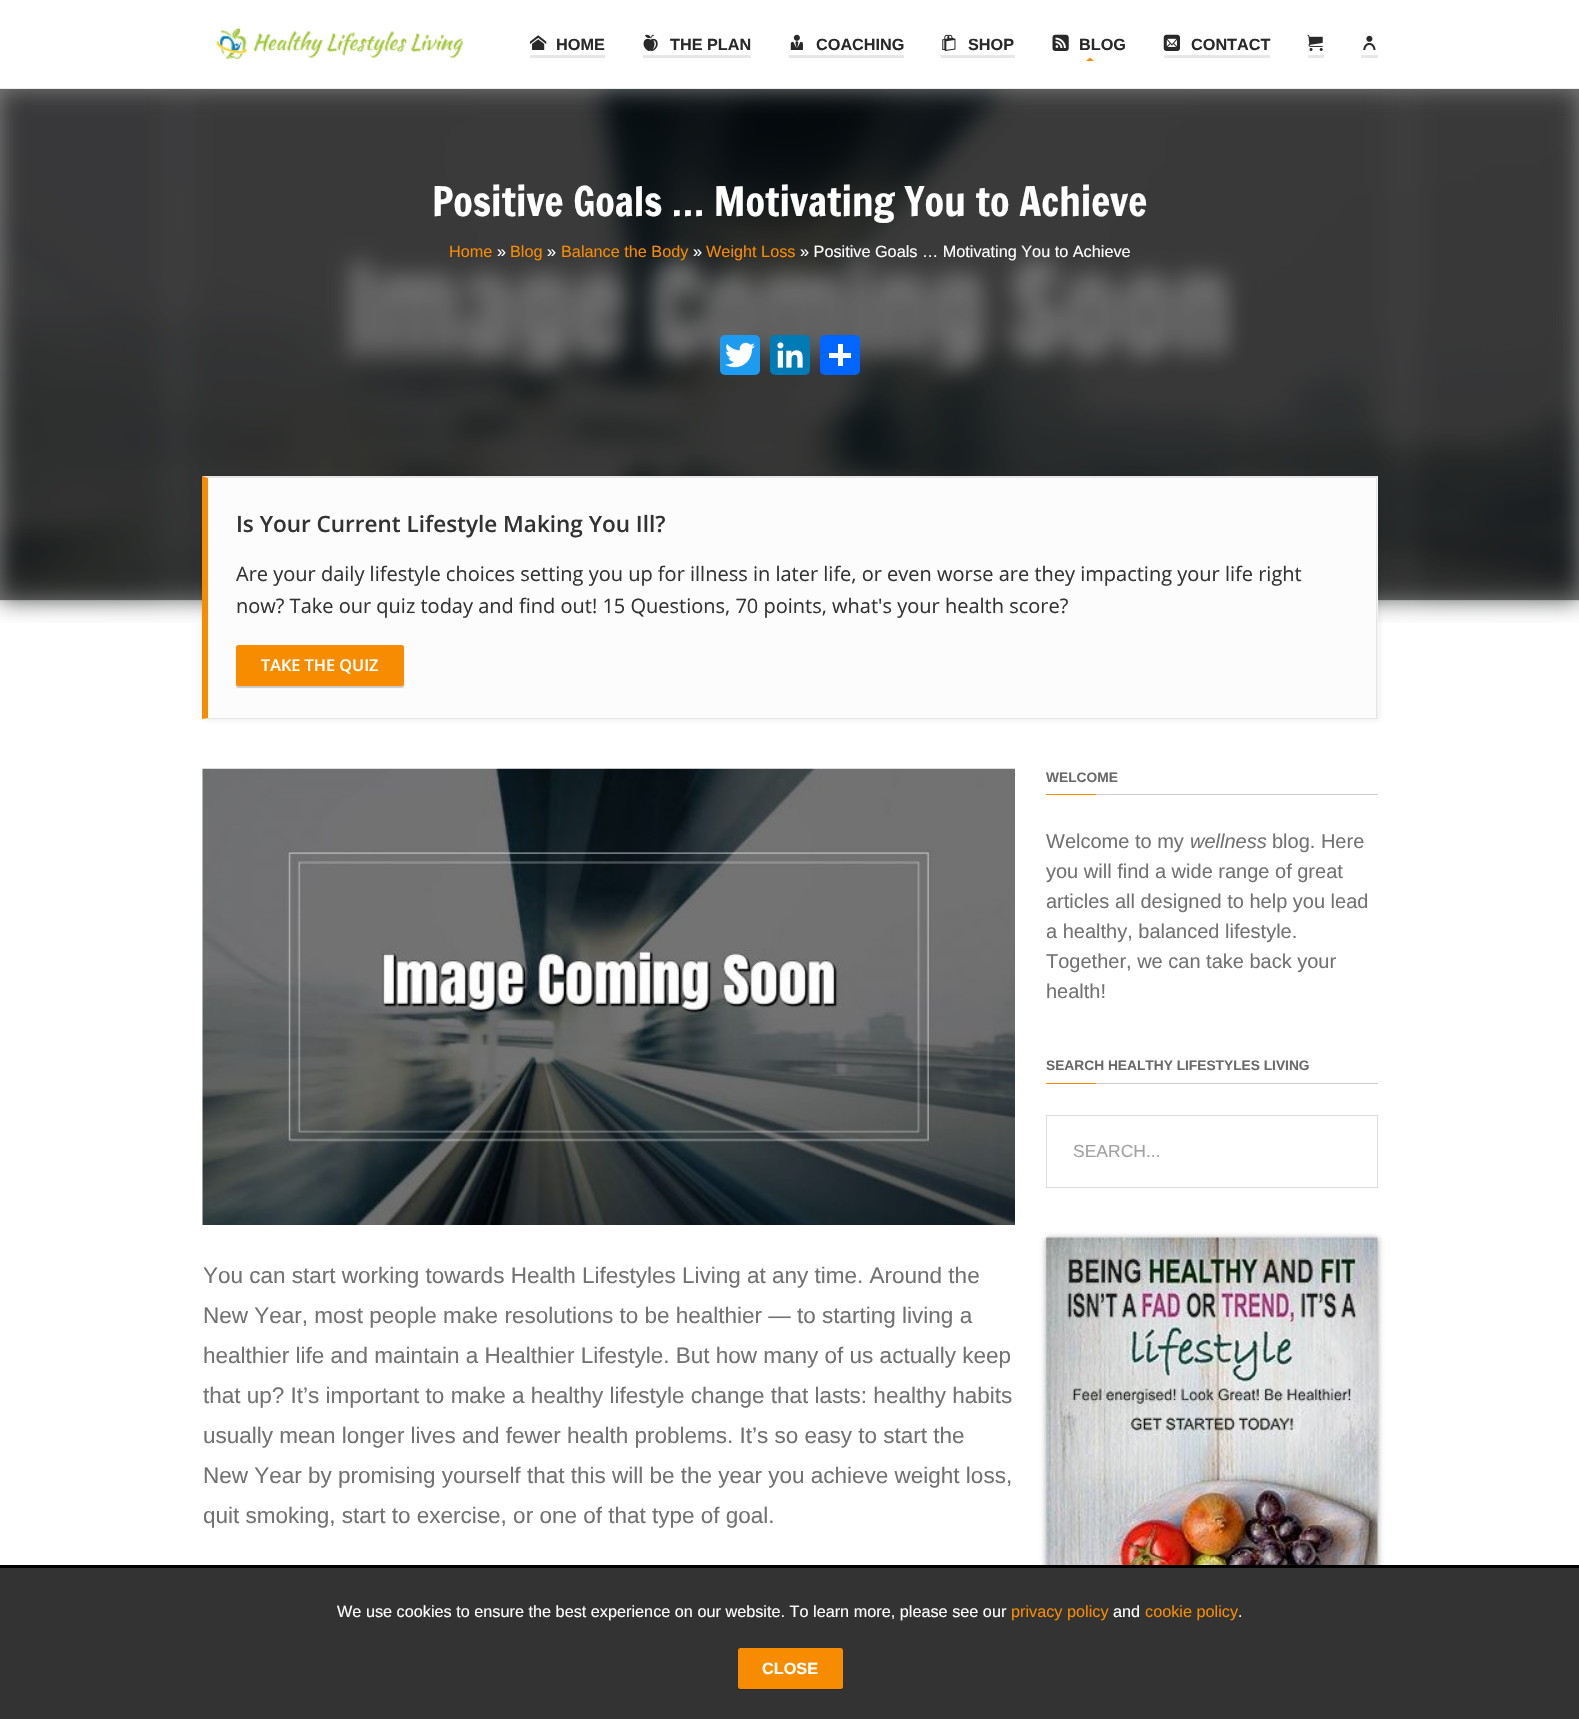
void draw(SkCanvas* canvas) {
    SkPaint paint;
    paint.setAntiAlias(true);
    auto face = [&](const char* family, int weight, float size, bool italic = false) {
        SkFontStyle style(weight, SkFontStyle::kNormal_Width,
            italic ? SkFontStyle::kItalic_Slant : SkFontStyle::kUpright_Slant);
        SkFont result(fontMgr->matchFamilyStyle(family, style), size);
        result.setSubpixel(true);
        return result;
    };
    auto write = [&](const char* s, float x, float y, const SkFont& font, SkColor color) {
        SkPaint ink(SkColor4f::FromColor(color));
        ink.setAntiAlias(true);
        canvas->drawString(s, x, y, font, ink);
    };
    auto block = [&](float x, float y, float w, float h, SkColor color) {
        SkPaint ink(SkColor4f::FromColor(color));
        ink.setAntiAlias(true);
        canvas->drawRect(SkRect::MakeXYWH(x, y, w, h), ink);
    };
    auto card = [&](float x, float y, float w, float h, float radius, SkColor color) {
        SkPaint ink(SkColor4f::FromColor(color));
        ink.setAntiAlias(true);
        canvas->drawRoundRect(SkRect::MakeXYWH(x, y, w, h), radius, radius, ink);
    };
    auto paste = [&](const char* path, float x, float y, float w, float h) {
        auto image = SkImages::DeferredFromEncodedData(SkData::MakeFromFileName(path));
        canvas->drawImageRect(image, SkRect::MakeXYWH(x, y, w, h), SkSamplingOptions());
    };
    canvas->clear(SK_ColorWHITE);
    block(0, 89, 1579, 511, SkColorSetRGB(128, 128, 128));
    block(0, 88, 1579, 1, SkColorSetRGB(235, 235, 235));
    paste("pic1.png", 216, 27, 248, 32);
    block(530, 55, 75, 3, SkColorSetRGB(231, 231, 231));
    paste("pic2.png", 530, 35, 17, 15);
    auto kFont1 = face("Liberation Sans", 700, 16.25f);
    write("HOME", 556, 50, kFont1, SkColorSetRGB(41, 41, 41));
    block(643, 55, 108, 3, SkColorSetRGB(231, 231, 231));
    paste("pic3.png", 643, 34, 15, 17);
    write("THE PLAN", 670, 50, kFont1, SkColorSetRGB(41, 41, 41));
    block(789, 55, 115, 3, SkColorSetRGB(231, 231, 231));
    paste("pic4.png", 790, 34, 13, 16);
    write("COACHING", 816, 50, kFont1, SkColorSetRGB(41, 41, 41));
    block(941, 55, 74, 3, SkColorSetRGB(231, 231, 231));
    paste("pic5.png", 942, 34, 14, 17);
    write("SHOP", 968, 50, kFont1, SkColorSetRGB(41, 41, 41));
    paste("pic6.png", 1052, 34, 17, 17);
    write("BLOG", 1079, 50, kFont1, SkColorSetRGB(41, 41, 41));
    paint.setColor(SkColorSetRGB(248, 140, 0));
    canvas->drawPath(SkPathBuilder().moveTo(1094, 61).lineTo(1086, 61).lineTo(1090, 57.5f).close().detach(), paint);
    block(1164, 55, 106, 3, SkColorSetRGB(231, 231, 231));
    paste("pic7.png", 1163, 34, 17, 17);
    write("CONTACT", 1191, 50, kFont1, SkColorSetRGB(41, 41, 41));
    block(1308, 55, 16, 3, SkColorSetRGB(231, 231, 231));
    paste("pic8.png", 1307, 34, 16, 17);
    block(1361, 55, 17, 3, SkColorSetRGB(231, 231, 231));
    paste("pic9.png", 1363, 35, 13, 15);
    block(0, 600, 1579, 1, SkColorSetRGB(235, 235, 235));
    paste("pic10.png", 0, 89, 1579, 534);
    auto kFont2 = face("Francois One", 400, 40);
    write("Positive Goals … Motivating You to Achieve", 432, 216, kFont2, SK_ColorWHITE);
    auto kFont3 = face("Liberation Sans", 400, 16.25f);
    write("Home", 449, 257, kFont3, SkColorSetRGB(248, 140, 0));
    write("»", 497, 257, kFont3, SK_ColorWHITE);
    write("Blog", 510, 257, kFont3, SkColorSetRGB(248, 140, 0));
    write("»", 547, 257, kFont3, SK_ColorWHITE);
    write("Balance the Body", 561, 257, kFont3, SkColorSetRGB(248, 140, 0));
    write("»", 693, 257, kFont3, SK_ColorWHITE);
    write("Weight Loss", 706, 257, kFont3, SkColorSetRGB(248, 140, 0));
    write("» Positive Goals … Motivating You to Achieve", 800, 257, kFont3, SK_ColorWHITE);
    card(720, 335, 40, 40, 5, SkColorSetRGB(29, 155, 240));
    paste("pic11.png", 725, 342, 30, 26);
    card(770, 335, 40, 40, 5, SkColorSetRGB(0, 123, 181));
    paste("pic12.png", 777, 342, 26, 26);
    card(820, 335, 40, 40, 5, SkColorSetRGB(1, 102, 255));
    block(838, 344, 5, 22, SK_ColorWHITE);
    block(829, 353, 22, 5, SK_ColorWHITE);
    block(203, 476, 1175, 147, SK_ColorWHITE);
    paint.setColor(SkColorSetARGB(20, 26, 26, 26));
    paint.setMaskFilter(SkMaskFilter::MakeBlur(kNormal_SkBlurStyle, 3));
    canvas->drawRect(SkRect::MakeXYWH(204, 478, 1175, 242), paint);
    paint.setMaskFilter(nullptr);
    block(208, 478, 1168, 240, SkColorSetRGB(252, 252, 252));
    paint.setColor(SkColorSetRGB(229, 229, 229));
    canvas->drawPath(SkPathBuilder().moveTo(202, 476).lineTo(1378, 476).lineTo(1376, 478).lineTo(208, 478).close().detach(), paint);
    block(1376, 476, 1, 243, SkColorSetRGB(229, 229, 229));
    canvas->drawPath(SkPathBuilder().moveTo(1378, 719).lineTo(202, 719).lineTo(208, 718).lineTo(1376, 718).close().detach(), paint);
    paint.setColor(SkColorSetRGB(248, 140, 0));
    canvas->drawPath(SkPathBuilder().moveTo(202, 719).lineTo(202, 476).lineTo(208, 478).lineTo(208, 718).close().detach(), paint);
    auto kFont4 = face("Open Sans", 600, 22.5f);
    write("Is Your Current Lifestyle Making You Ill?", 236, 532, kFont4, SkColorSetRGB(51, 51, 51));
    auto kFont5 = face("Open Sans", 400, 20);
    write("Are your daily lifestyle choices setting you up for illness in later life, or even worse are they impacting your life right", 236, 581, kFont5, SkColorSetRGB(51, 51, 51));
    write("now? Take our quiz today and find out! 15 Questions, 70 points, what's your health score?", 236, 613, kFont5, SkColorSetRGB(51, 51, 51));
    paint.setColor(SkColorSetARGB(51, 0, 0, 0));
    paint.setMaskFilter(SkMaskFilter::MakeBlur(kNormal_SkBlurStyle, 0.5f));
    canvas->drawRoundRect(SkRect::MakeXYWH(236, 646, 168, 42), 2.5f, 2.5f, paint);
    paint.setMaskFilter(nullptr);
    card(236, 645, 168, 41, 2.5f, SkColorSetRGB(248, 140, 0));
    auto kFont6 = face("Open Sans", 600, 16.25f);
    write("TAKE THE QUIZ", 261, 671, kFont6, SK_ColorWHITE);
    auto kFont7 = face("Liberation Sans", 700, 13.75f);
    write("WELCOME", 1046, 782, kFont7, SkColorSetRGB(105, 105, 105));
    block(1096, 794, 282, 1, SkColorSetRGB(204, 204, 204));
    block(1046, 794, 50, 1, SkColorSetRGB(248, 140, 0));
    auto kFont8 = face("Liberation Sans", 400, 20);
    write("Welcome to my", 1046, 848, kFont8, SkColorSetRGB(114, 114, 114));
    auto kFont9 = face("Liberation Sans", 400, 20, true);
    write("wellness", 1190, 848, kFont9, SkColorSetRGB(114, 114, 114));
    write("blog. Here", 1272, 848, kFont8, SkColorSetRGB(114, 114, 114));
    write("you will find a wide range of great", 1046, 878, kFont8, SkColorSetRGB(114, 114, 114));
    write("articles all designed to help you lead", 1046, 908, kFont8, SkColorSetRGB(114, 114, 114));
    write("a healthy, balanced lifestyle.", 1046, 938, kFont8, SkColorSetRGB(114, 114, 114));
    write("Together, we can take back your", 1046, 968, kFont8, SkColorSetRGB(114, 114, 114));
    write("health!", 1046, 998, kFont8, SkColorSetRGB(114, 114, 114));
    write("SEARCH HEALTHY LIFESTYLES LIVING", 1046, 1070, kFont7, SkColorSetRGB(105, 105, 105));
    block(1096, 1083, 282, 1, SkColorSetRGB(204, 204, 204));
    block(1046, 1083, 50, 1, SkColorSetRGB(248, 140, 0));
    paint.setStyle(SkPaint::kStroke_Style);
    paint.setStrokeWidth(1);
    paint.setColor(SkColorSetRGB(221, 221, 221));
    canvas->drawRect(SkRect::MakeXYWH(1046.5f, 1115.5f, 331, 72), paint);
    auto kFont10 = face("Liberation Sans", 400, 17.5f);
    write("SEARCH...", 1073, 1157, kFont10, SkColorSetRGB(161, 161, 161));
    paint.setStyle(SkPaint::kFill_Style);
    paint.setColor(SkColorSetRGB(172, 172, 172));
    paint.setMaskFilter(SkMaskFilter::MakeBlur(kNormal_SkBlurStyle, 3));
    canvas->drawRect(SkRect::MakeXYWH(1046, 1238, 332, 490), paint);
    paint.setMaskFilter(nullptr);
    paste("pic13.png", 1046, 1237, 332, 328);
    paste("pic14.png", 202, 768, 813, 457);
    auto kFont11 = face("Liberation Sans", 400, 22.5f);
    write("You can start working towards Health Lifestyles Living at any time. Around the", 203, 1283, kFont11, SkColorSetRGB(114, 114, 114));
    write("New Year, most people make resolutions to be healthier — to starting living a", 203, 1323, kFont11, SkColorSetRGB(114, 114, 114));
    write("healthier life and maintain a Healthier Lifestyle. But how many of us actually keep", 203, 1363, kFont11, SkColorSetRGB(114, 114, 114));
    write("that up? It’s important to make a healthy lifestyle change that lasts: healthy habits", 203, 1403, kFont11, SkColorSetRGB(114, 114, 114));
    write("usually mean longer lives and fewer health problems. It’s so easy to start the", 203, 1443, kFont11, SkColorSetRGB(114, 114, 114));
    write("New Year by promising yourself that this will be the year you achieve weight loss,", 203, 1483, kFont11, SkColorSetRGB(114, 114, 114));
    write("quit smoking, start to exercise, or one of that type of goal.", 203, 1523, kFont11, SkColorSetRGB(114, 114, 114));
    block(0, 1568, 1579, 151, SkColorSetRGB(51, 51, 51));
    block(0, 1565, 1579, 3, SK_ColorBLACK);
    write("We use cookies to ensure the best experience on our website. To learn more, please see our", 337, 1617, kFont3, SK_ColorWHITE);
    write("privacy policy", 1011, 1617, kFont3, SkColorSetRGB(248, 140, 0));
    write("and", 1113, 1617, kFont3, SK_ColorWHITE);
    write("cookie policy", 1145, 1617, kFont3, SkColorSetRGB(248, 140, 0));
    write(".", 1238, 1617, kFont3, SK_ColorWHITE);
    paint.setColor(SkColorSetARGB(51, 0, 0, 0));
    paint.setMaskFilter(SkMaskFilter::MakeBlur(kNormal_SkBlurStyle, 0.5f));
    canvas->drawRoundRect(SkRect::MakeXYWH(738, 1649, 105, 41), 2.5f, 2.5f, paint);
    paint.setMaskFilter(nullptr);
    card(738, 1648, 105, 41, 2.5f, SkColorSetRGB(248, 140, 0));
    write("CLOSE", 762, 1674, kFont1, SK_ColorWHITE);
}
